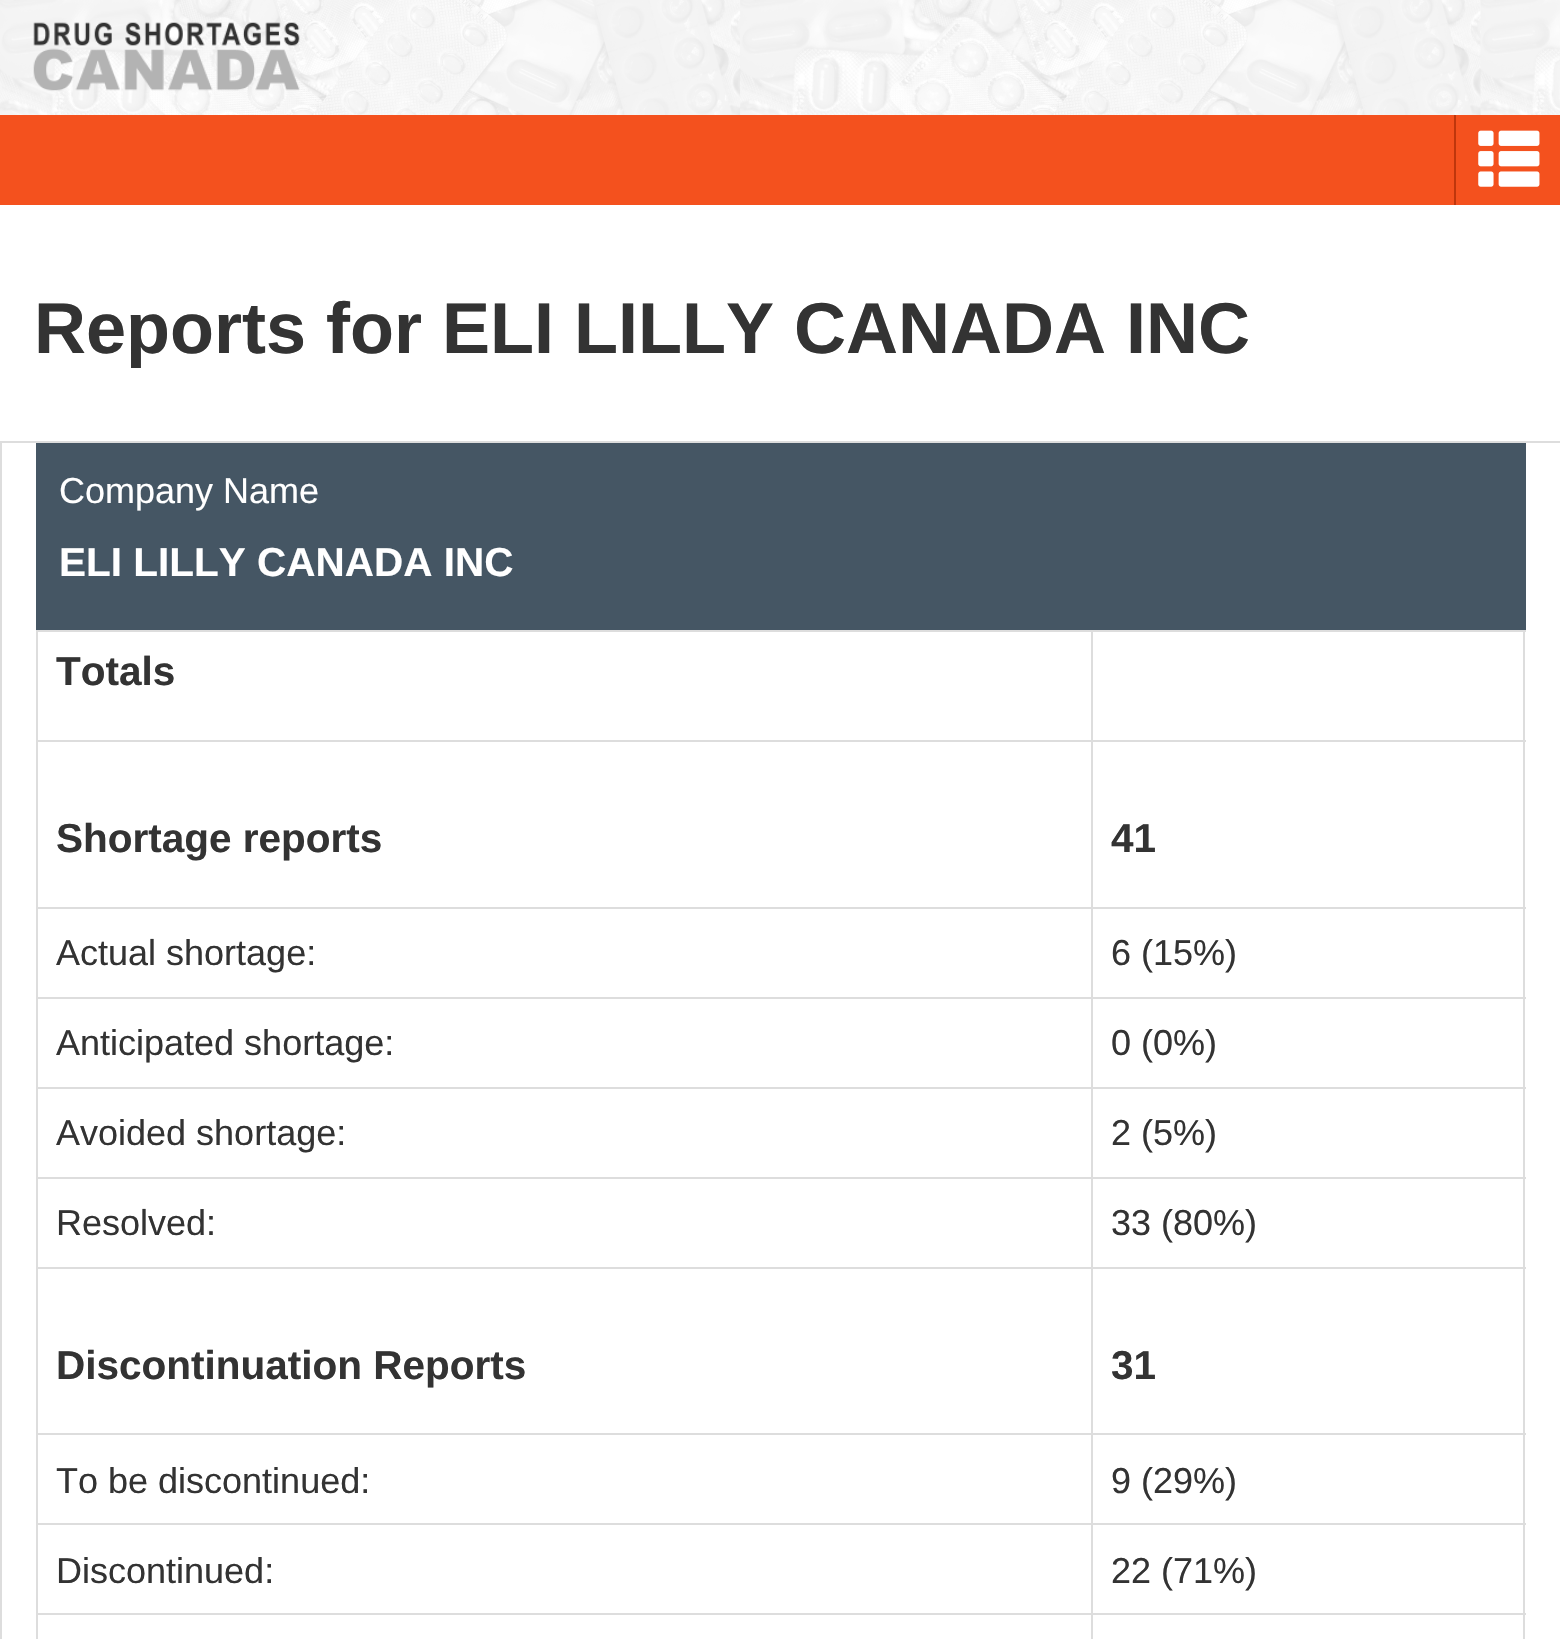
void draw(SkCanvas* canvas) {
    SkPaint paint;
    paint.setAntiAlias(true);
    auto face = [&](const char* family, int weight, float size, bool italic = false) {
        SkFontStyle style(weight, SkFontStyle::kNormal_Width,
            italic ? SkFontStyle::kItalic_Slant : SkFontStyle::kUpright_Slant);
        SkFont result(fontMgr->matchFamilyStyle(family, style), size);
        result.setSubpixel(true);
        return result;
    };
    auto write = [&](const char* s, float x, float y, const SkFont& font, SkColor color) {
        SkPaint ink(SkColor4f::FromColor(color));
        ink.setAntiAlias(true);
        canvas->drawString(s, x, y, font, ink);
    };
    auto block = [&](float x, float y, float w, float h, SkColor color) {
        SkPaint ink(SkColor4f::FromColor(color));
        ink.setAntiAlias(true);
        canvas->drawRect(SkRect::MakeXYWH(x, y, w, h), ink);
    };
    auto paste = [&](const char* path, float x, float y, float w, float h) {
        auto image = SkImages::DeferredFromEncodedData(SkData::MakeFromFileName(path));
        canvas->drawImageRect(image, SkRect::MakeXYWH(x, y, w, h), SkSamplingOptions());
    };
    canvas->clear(SK_ColorWHITE);
    paste("pic1.png", 0, 0, 1560, 115);
    paste("pic2.png", 33, 22, 267, 69);
    block(0, 115, 1560, 90, SkColorSetRGB(244, 81, 30));
    block(1454, 115, 2, 90, SkColorSetRGB(191, 54, 12));
    paste("pic3.png", 1478, 130, 62, 57);
    auto kFont1 = face("Liberation Sans", 700, 72);
    write("Reports for ELI LILLY CANADA INC", 34, 353, kFont1, SkColorSetRGB(51, 51, 51));
    paint.setStyle(SkPaint::kStroke_Style);
    paint.setStrokeWidth(2);
    paint.setColor(SkColorSetRGB(221, 221, 221));
    canvas->drawRect(SkRect::MakeXYWH(1, 442, 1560, 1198), paint);
    block(36, 443, 1490, 187, SkColorSetRGB(69, 86, 100));
    auto kFont2 = face("Liberation Sans", 400, 36);
    write("Company Name", 59, 503, kFont2, SK_ColorWHITE);
    auto kFont3 = face("Liberation Sans", 700, 40.5f);
    write("ELI LILLY CANADA INC", 59, 576, kFont3, SK_ColorWHITE);
    block(36, 630, 1490, 2, SkColorSetRGB(221, 221, 221));
    block(1523, 630, 2, 1009, SkColorSetRGB(221, 221, 221));
    block(36, 630, 2, 1009, SkColorSetRGB(221, 221, 221));
    block(1091, 740, 435, 2, SkColorSetRGB(221, 221, 221));
    block(1091, 907, 435, 2, SkColorSetRGB(221, 221, 221));
    block(1091, 997, 435, 2, SkColorSetRGB(221, 221, 221));
    block(1091, 1087, 435, 2, SkColorSetRGB(221, 221, 221));
    block(1091, 1177, 435, 2, SkColorSetRGB(221, 221, 221));
    block(1091, 1267, 435, 2, SkColorSetRGB(221, 221, 221));
    block(1091, 1433, 435, 2, SkColorSetRGB(221, 221, 221));
    block(1091, 1523, 435, 2, SkColorSetRGB(221, 221, 221));
    block(1091, 1613, 435, 2, SkColorSetRGB(221, 221, 221));
    block(1091, 1613, 2, 26, SkColorSetRGB(221, 221, 221));
    block(36, 1613, 1058, 2, SkColorSetRGB(221, 221, 221));
    block(1091, 1523, 2, 93, SkColorSetRGB(221, 221, 221));
    block(36, 1523, 1058, 2, SkColorSetRGB(221, 221, 221));
    block(1091, 1433, 2, 93, SkColorSetRGB(221, 221, 221));
    block(36, 1433, 1058, 2, SkColorSetRGB(221, 221, 221));
    block(1091, 1267, 2, 169, SkColorSetRGB(221, 221, 221));
    block(36, 1267, 1058, 2, SkColorSetRGB(221, 221, 221));
    block(1091, 1177, 2, 92, SkColorSetRGB(221, 221, 221));
    block(36, 1177, 1058, 2, SkColorSetRGB(221, 221, 221));
    block(1091, 1087, 2, 92, SkColorSetRGB(221, 221, 221));
    block(36, 1087, 1058, 2, SkColorSetRGB(221, 221, 221));
    block(1091, 997, 2, 92, SkColorSetRGB(221, 221, 221));
    block(36, 997, 1058, 2, SkColorSetRGB(221, 221, 221));
    block(1091, 907, 2, 92, SkColorSetRGB(221, 221, 221));
    block(36, 907, 1058, 2, SkColorSetRGB(221, 221, 221));
    block(1091, 740, 2, 169, SkColorSetRGB(221, 221, 221));
    block(36, 740, 1058, 2, SkColorSetRGB(221, 221, 221));
    block(1091, 630, 2, 113, SkColorSetRGB(221, 221, 221));
    write("Totals", 56, 685, kFont3, SkColorSetRGB(51, 51, 51));
    write("Shortage reports", 56, 852, kFont3, SkColorSetRGB(51, 51, 51));
    write("41", 1111, 852, kFont3, SkColorSetRGB(51, 51, 51));
    write("Actual shortage:", 56, 965, kFont2, SkColorSetRGB(51, 51, 51));
    write("6 (15%)", 1111, 965, kFont2, SkColorSetRGB(51, 51, 51));
    write("Anticipated shortage:", 56, 1055, kFont2, SkColorSetRGB(51, 51, 51));
    write("0 (0%)", 1111, 1055, kFont2, SkColorSetRGB(51, 51, 51));
    write("Avoided shortage:", 56, 1145, kFont2, SkColorSetRGB(51, 51, 51));
    write("2 (5%)", 1111, 1145, kFont2, SkColorSetRGB(51, 51, 51));
    write("Resolved:", 56, 1235, kFont2, SkColorSetRGB(51, 51, 51));
    write("33 (80%)", 1111, 1235, kFont2, SkColorSetRGB(51, 51, 51));
    write("Discontinuation Reports", 56, 1379, kFont3, SkColorSetRGB(51, 51, 51));
    write("31", 1111, 1379, kFont3, SkColorSetRGB(51, 51, 51));
    write("To be discontinued:", 56, 1493, kFont2, SkColorSetRGB(51, 51, 51));
    write("9 (29%)", 1111, 1493, kFont2, SkColorSetRGB(51, 51, 51));
    write("Discontinued:", 56, 1583, kFont2, SkColorSetRGB(51, 51, 51));
    write("22 (71%)", 1111, 1583, kFont2, SkColorSetRGB(51, 51, 51));
}
